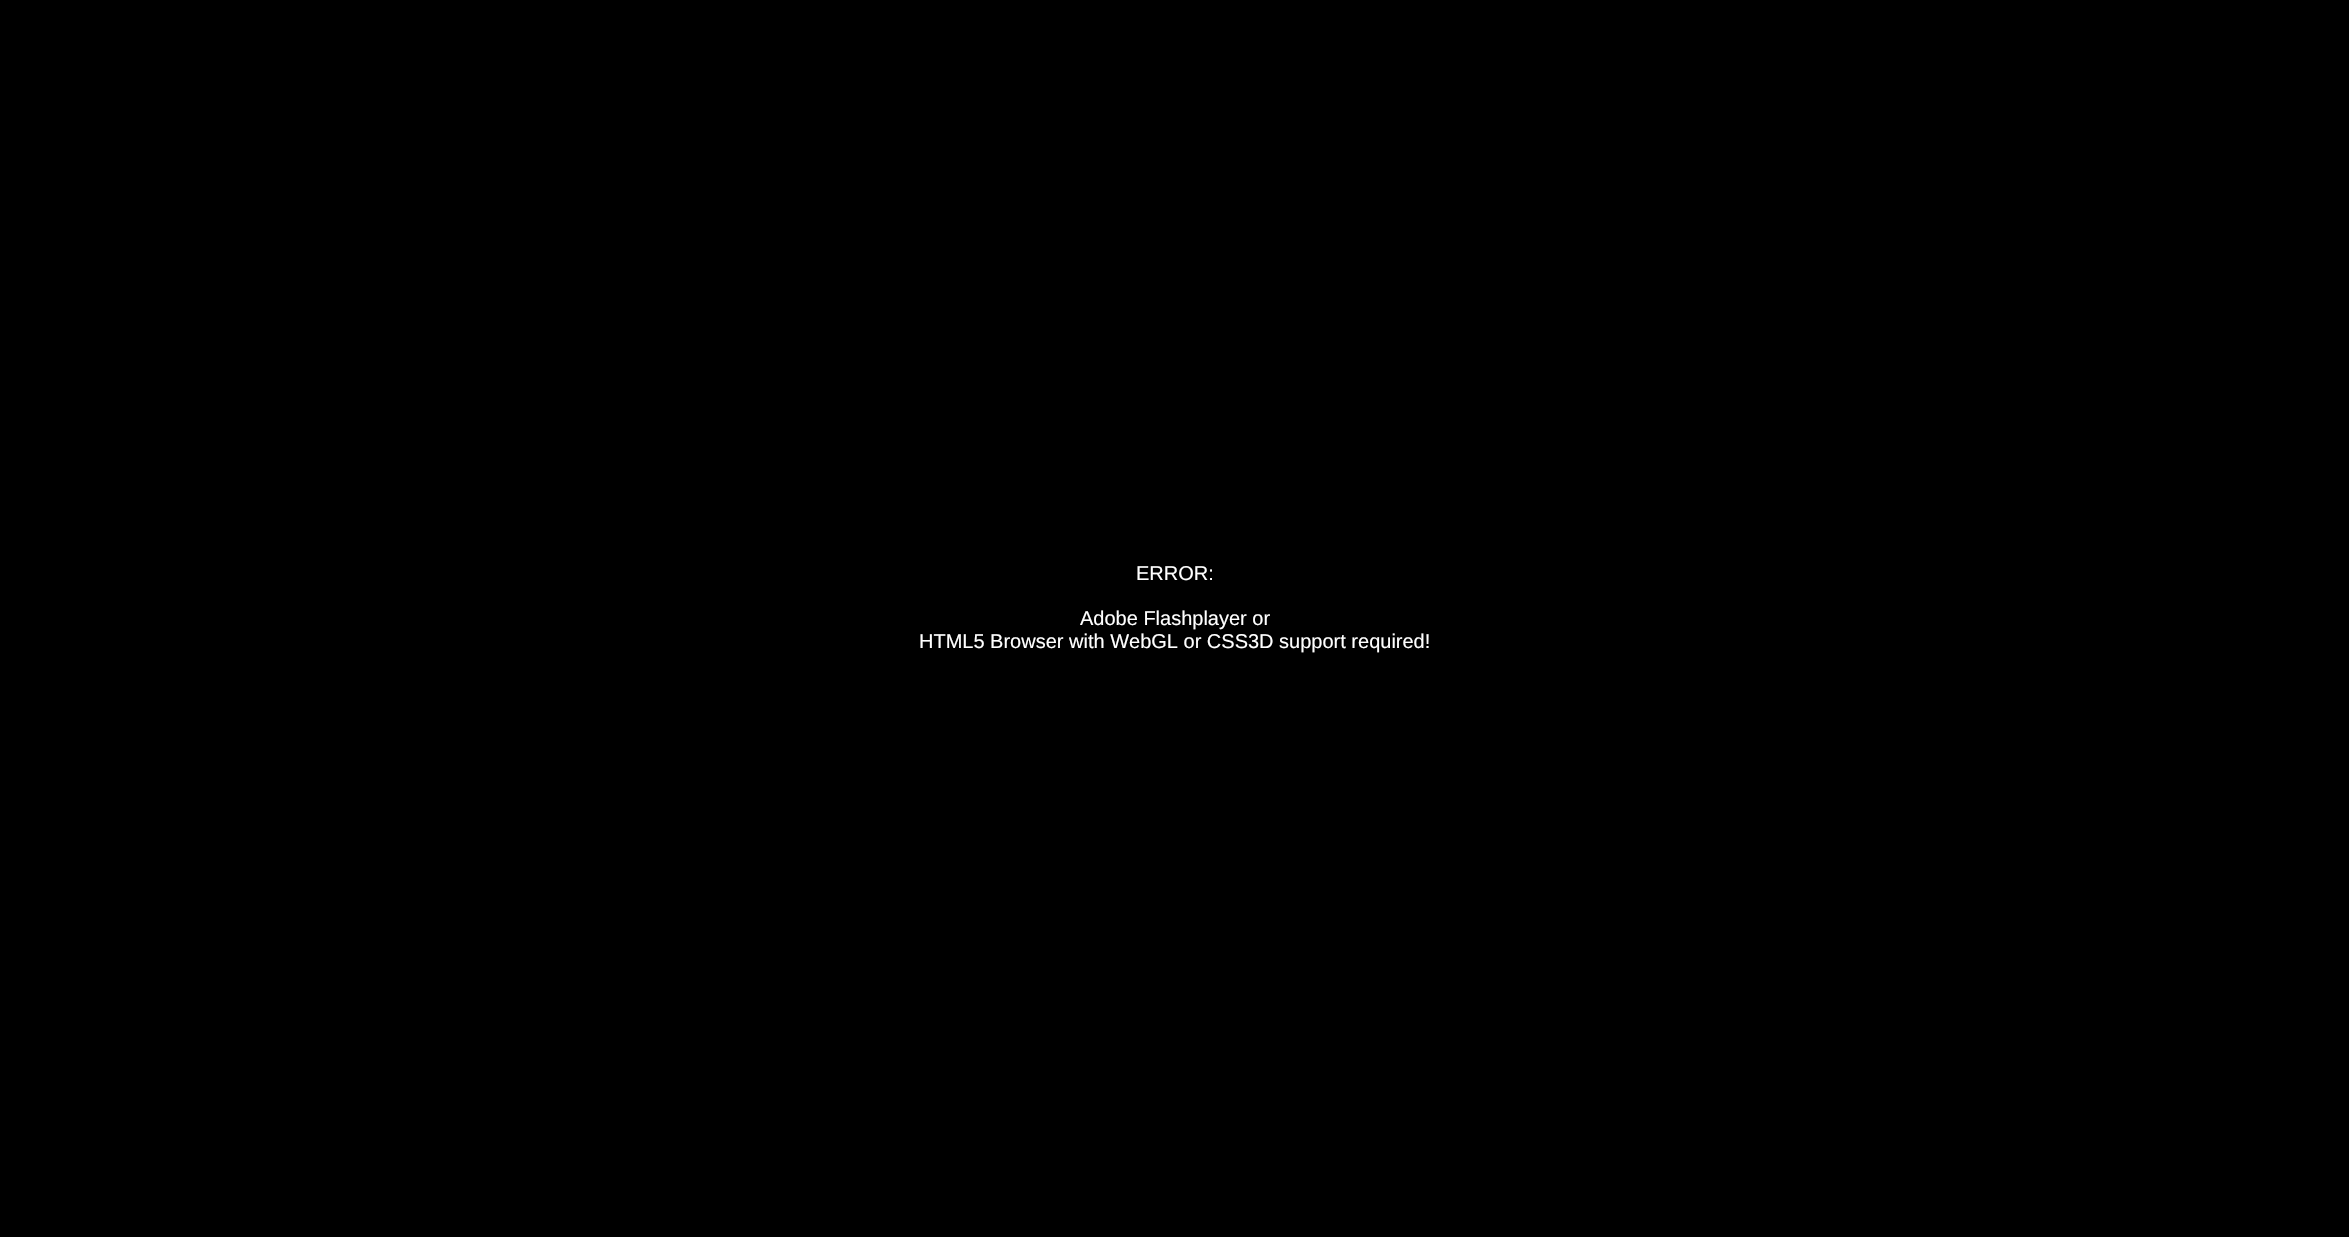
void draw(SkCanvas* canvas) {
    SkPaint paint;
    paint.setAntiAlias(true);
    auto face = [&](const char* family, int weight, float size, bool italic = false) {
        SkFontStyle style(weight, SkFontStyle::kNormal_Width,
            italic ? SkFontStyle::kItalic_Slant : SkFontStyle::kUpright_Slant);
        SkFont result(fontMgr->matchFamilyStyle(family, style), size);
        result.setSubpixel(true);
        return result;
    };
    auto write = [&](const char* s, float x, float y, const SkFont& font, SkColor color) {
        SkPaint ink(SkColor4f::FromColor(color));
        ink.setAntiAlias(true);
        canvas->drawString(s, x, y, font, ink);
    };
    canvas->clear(SK_ColorBLACK);
    auto kFont1 = face("Liberation Sans", 400, 20);
    write("ERROR:", 1136, 580, kFont1, SK_ColorWHITE);
    write("Adobe Flashplayer or", 1080, 625, kFont1, SK_ColorWHITE);
    write("HTML5 Browser with WebGL or CSS3D support required!", 919, 648, kFont1, SK_ColorWHITE);
}
